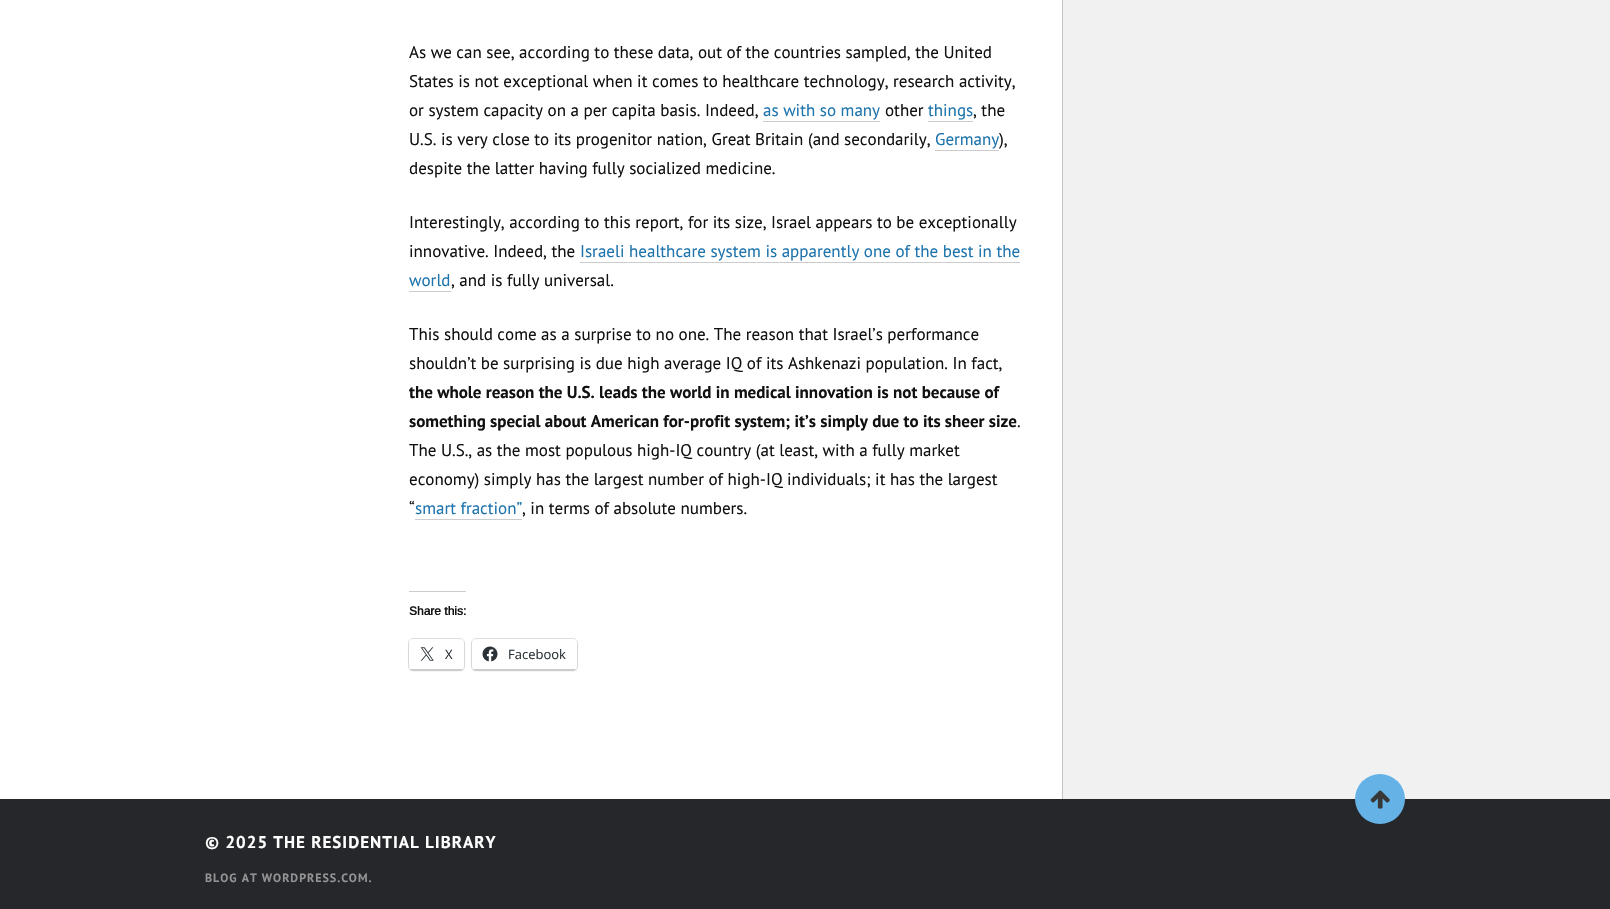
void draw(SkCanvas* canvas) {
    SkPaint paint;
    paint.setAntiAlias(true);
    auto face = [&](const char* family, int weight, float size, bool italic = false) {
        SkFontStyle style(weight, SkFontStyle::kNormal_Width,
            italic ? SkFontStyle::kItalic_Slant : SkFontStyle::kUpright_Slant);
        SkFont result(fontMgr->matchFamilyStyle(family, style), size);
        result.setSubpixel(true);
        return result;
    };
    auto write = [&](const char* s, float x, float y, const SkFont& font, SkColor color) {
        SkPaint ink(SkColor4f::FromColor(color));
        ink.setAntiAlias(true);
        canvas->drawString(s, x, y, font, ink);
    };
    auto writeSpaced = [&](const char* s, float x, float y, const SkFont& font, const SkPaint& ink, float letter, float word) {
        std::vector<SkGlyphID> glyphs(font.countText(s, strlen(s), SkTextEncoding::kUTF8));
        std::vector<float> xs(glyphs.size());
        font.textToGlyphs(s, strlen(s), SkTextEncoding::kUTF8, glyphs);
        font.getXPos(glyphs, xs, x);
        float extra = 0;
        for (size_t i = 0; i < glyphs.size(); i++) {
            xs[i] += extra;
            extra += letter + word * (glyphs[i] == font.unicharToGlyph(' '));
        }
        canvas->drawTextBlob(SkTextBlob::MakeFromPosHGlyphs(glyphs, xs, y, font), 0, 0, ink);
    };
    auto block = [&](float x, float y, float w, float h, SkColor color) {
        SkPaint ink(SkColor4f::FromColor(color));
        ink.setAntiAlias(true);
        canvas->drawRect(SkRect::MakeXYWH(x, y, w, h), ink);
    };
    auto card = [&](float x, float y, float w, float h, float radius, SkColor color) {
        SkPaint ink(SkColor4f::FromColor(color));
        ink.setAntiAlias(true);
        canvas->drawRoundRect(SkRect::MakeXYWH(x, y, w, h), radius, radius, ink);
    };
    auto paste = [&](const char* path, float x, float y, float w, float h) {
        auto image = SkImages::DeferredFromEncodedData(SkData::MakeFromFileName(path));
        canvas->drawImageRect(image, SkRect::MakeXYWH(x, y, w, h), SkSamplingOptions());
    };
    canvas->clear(SkColorSetRGB(241, 241, 241));
    block(0, 0, 1062, 799, SK_ColorWHITE);
    auto kFont1 = face("PT Sans", 400, 17);
    write("As we can see, according to these data, out of the countries sampled, the United", 409, 58, kFont1, SkColorSetRGB(17, 17, 17));
    write("States is not exceptional when it comes to healthcare technology, research activity,", 409, 87, kFont1, SkColorSetRGB(17, 17, 17));
    write("or system capacity on a per capita basis. Indeed,", 409, 116, kFont1, SkColorSetRGB(17, 17, 17));
    write("as with so many", 763, 116, kFont1, SkColorSetRGB(30, 116, 173));
    block(763, 121, 117, 1, SkColorSetRGB(204, 204, 204));
    write("other", 885, 116, kFont1, SkColorSetRGB(17, 17, 17));
    write("things", 928, 116, kFont1, SkColorSetRGB(30, 116, 173));
    block(928, 121, 45, 1, SkColorSetRGB(204, 204, 204));
    write(", the", 973, 116, kFont1, SkColorSetRGB(17, 17, 17));
    write("U.S. is very close to its progenitor nation, Great Britain (and secondarily,", 409, 145, kFont1, SkColorSetRGB(17, 17, 17));
    write("Germany", 935, 145, kFont1, SkColorSetRGB(30, 116, 173));
    block(935, 150, 64, 1, SkColorSetRGB(204, 204, 204));
    write("),", 999, 145, kFont1, SkColorSetRGB(17, 17, 17));
    write("despite the latter having fully socialized medicine.", 409, 174, kFont1, SkColorSetRGB(17, 17, 17));
    write("Interestingly, according to this report, for its size, Israel appears to be exceptionally", 409, 228, kFont1, SkColorSetRGB(17, 17, 17));
    write("innovative. Indeed, the", 409, 257, kFont1, SkColorSetRGB(17, 17, 17));
    write("Israeli healthcare system is apparently one of the best in the", 580, 257, kFont1, SkColorSetRGB(30, 116, 173));
    block(580, 262, 440, 1, SkColorSetRGB(204, 204, 204));
    write("world", 409, 286, kFont1, SkColorSetRGB(30, 116, 173));
    block(409, 291, 42, 1, SkColorSetRGB(204, 204, 204));
    write(", and is fully universal.", 451, 286, kFont1, SkColorSetRGB(17, 17, 17));
    write("This should come as a surprise to no one. The reason that Israel’s performance", 409, 340, kFont1, SkColorSetRGB(17, 17, 17));
    write("shouldn’t be surprising is due high average IQ of its Ashkenazi population. In fact,", 409, 369, kFont1, SkColorSetRGB(17, 17, 17));
    auto kFont2 = face("PT Sans", 700, 17);
    write("the whole reason the U.S. leads the world in medical innovation is not because of", 409, 398, kFont2, SkColorSetRGB(17, 17, 17));
    write("something special about American for-profit system; it’s simply due to its sheer size", 409, 427, kFont2, SkColorSetRGB(17, 17, 17));
    write(".", 1017, 427, kFont1, SkColorSetRGB(17, 17, 17));
    write("The U.S., as the most populous high-IQ country (at least, with a fully market", 409, 456, kFont1, SkColorSetRGB(17, 17, 17));
    write("economy) simply has the largest number of high-IQ individuals; it has the largest", 409, 485, kFont1, SkColorSetRGB(17, 17, 17));
    write("“", 409, 514, kFont1, SkColorSetRGB(17, 17, 17));
    write("smart fraction”", 415, 514, kFont1, SkColorSetRGB(30, 116, 173));
    block(415, 519, 107, 1, SkColorSetRGB(204, 204, 204));
    write(", in terms of absolute numbers.", 522, 514, kFont1, SkColorSetRGB(17, 17, 17));
    block(409, 591, 57, 1, SkColorSetRGB(204, 204, 204));
    auto kFont3 = face("Arimo", 700, 12);
    write("Share this:", 409, 615, kFont3, SkColorSetRGB(17, 17, 17));
    paint.setStyle(SkPaint::kStroke_Style);
    paint.setStrokeWidth(1);
    paint.setColor(SkColorSetRGB(224, 224, 224));
    canvas->drawRoundRect(SkRect::MakeXYWH(408.5f, 638.5f, 56, 32), 4.5f, 4.5f, paint);
    paint.setStyle(SkPaint::kFill_Style);
    paint.setColor(SkColorSetARGB(31, 0, 0, 0));
    paint.setMaskFilter(SkMaskFilter::MakeBlur(kNormal_SkBlurStyle, 1));
    canvas->drawRoundRect(SkRect::MakeXYWH(409, 640, 55, 31), 4, 4, paint);
    paint.setMaskFilter(nullptr);
    card(409, 639, 55, 31, 4, SK_ColorWHITE);
    block(411, 669, 51, 1, SkColorSetARGB(51, 0, 0, 0));
    paste("pic1.png", 420, 647, 14, 14);
    auto kFont4 = face("Open Sans", 400, 13);
    write("X", 445, 659, kFont4, SkColorSetRGB(44, 51, 56));
    paint.setStyle(SkPaint::kStroke_Style);
    paint.setColor(SkColorSetRGB(224, 224, 224));
    canvas->drawRoundRect(SkRect::MakeXYWH(471.5f, 638.5f, 106, 32), 4.5f, 4.5f, paint);
    paint.setStyle(SkPaint::kFill_Style);
    paint.setColor(SkColorSetARGB(31, 0, 0, 0));
    paint.setMaskFilter(SkMaskFilter::MakeBlur(kNormal_SkBlurStyle, 1));
    canvas->drawRoundRect(SkRect::MakeXYWH(472, 640, 105, 31), 4, 4, paint);
    paint.setMaskFilter(nullptr);
    card(472, 639, 105, 31, 4, SK_ColorWHITE);
    block(474, 669, 101, 1, SkColorSetARGB(51, 0, 0, 0));
    paste("pic2.png", 482, 646, 16, 16);
    write("Facebook", 508, 659, kFont4, SkColorSetRGB(44, 51, 56));
    block(1062, 0, 1, 799, SkColorSetRGB(193, 193, 193));
    block(0, 799, 1610, 110, SkColorSetRGB(38, 39, 43));
    paint.setColor(SkColorSetRGB(101, 178, 230));
    canvas->drawCircle(1380, 799, 25, paint);
    paste("pic3.png", 1370, 790, 20, 19);
    paint.setColor(SK_ColorWHITE);
    writeSpaced("© 2025 THE RESIDENTIAL LIBRARY", 205, 848, kFont2, paint, 1, 0);
    auto kFont5 = face("PT Sans", 700, 12);
    paint.setColor(SkColorSetRGB(147, 147, 149));
    writeSpaced("BLOG AT WORDPRESS.COM.", 205, 882, kFont5, paint, 1, 0);
}
